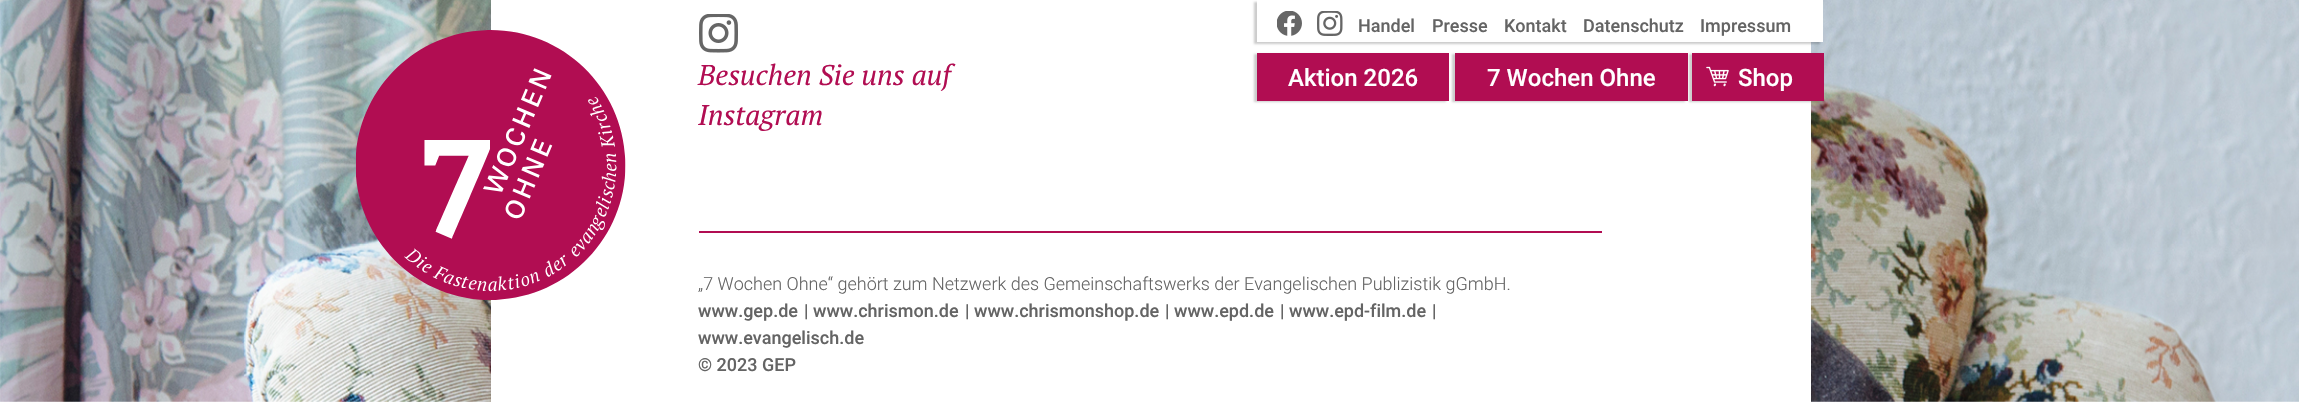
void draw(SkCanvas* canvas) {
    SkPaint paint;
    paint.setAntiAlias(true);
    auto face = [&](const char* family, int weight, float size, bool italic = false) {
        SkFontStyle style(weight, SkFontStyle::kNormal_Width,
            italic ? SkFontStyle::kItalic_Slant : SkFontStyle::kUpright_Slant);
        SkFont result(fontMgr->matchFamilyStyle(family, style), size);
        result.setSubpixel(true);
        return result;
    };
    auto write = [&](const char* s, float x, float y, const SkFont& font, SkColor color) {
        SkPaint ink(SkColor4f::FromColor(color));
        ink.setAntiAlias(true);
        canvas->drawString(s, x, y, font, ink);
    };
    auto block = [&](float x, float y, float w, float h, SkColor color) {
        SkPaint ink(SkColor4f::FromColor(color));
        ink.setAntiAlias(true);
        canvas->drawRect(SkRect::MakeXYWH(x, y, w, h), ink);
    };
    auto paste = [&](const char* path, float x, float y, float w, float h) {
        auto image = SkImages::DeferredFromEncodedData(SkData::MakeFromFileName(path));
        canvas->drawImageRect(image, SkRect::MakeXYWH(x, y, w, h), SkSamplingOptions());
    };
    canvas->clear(SK_ColorWHITE);
    paste("pic1.png", 0, 0, 2299, 402);
    block(491, 0, 1320, 402, SK_ColorWHITE);
    paste("pic2.png", 356, 30, 270, 270);
    paint.setColor(SkColorSetARGB(51, 0, 0, 0));
    paint.setMaskFilter(SkMaskFilter::MakeBlur(kNormal_SkBlurStyle, 1));
    canvas->drawRect(SkRect::MakeXYWH(1254, 2, 566, 42), paint);
    paint.setMaskFilter(nullptr);
    block(1257, 0, 566, 42, SK_ColorWHITE);
    paste("pic3.png", 1277, 11, 25, 25);
    paste("pic4.png", 1317, 11, 26, 25);
    auto kFont1 = face("Roboto", 500, 18);
    write("Handel", 1358, 32, kFont1, SkColorSetRGB(100, 100, 100));
    write("Presse", 1432, 32, kFont1, SkColorSetRGB(100, 100, 100));
    write("Kontakt", 1504, 32, kFont1, SkColorSetRGB(100, 100, 100));
    write("Datenschutz", 1583, 32, kFont1, SkColorSetRGB(100, 100, 100));
    write("Impressum", 1700, 32, kFont1, SkColorSetRGB(100, 100, 100));
    paint.setMaskFilter(SkMaskFilter::MakeBlur(kNormal_SkBlurStyle, 1));
    canvas->drawRect(SkRect::MakeXYWH(1254, 54, 192, 48), paint);
    paint.setMaskFilter(nullptr);
    block(1257, 53, 192, 48, SkColorSetRGB(177, 13, 82));
    auto kFont2 = face("Roboto", 500, 24);
    write("Aktion 2026", 1288, 86, kFont2, SK_ColorWHITE);
    paint.setMaskFilter(SkMaskFilter::MakeBlur(kNormal_SkBlurStyle, 1));
    canvas->drawRect(SkRect::MakeXYWH(1452, 54, 233, 48), paint);
    paint.setMaskFilter(nullptr);
    block(1455, 53, 233, 48, SkColorSetRGB(177, 13, 82));
    write("7 Wochen Ohne", 1487, 86, kFont2, SK_ColorWHITE);
    paint.setMaskFilter(SkMaskFilter::MakeBlur(kNormal_SkBlurStyle, 1));
    canvas->drawRect(SkRect::MakeXYWH(1689, 54, 132, 48), paint);
    paint.setMaskFilter(nullptr);
    block(1692, 53, 132, 48, SkColorSetRGB(177, 13, 82));
    paste("pic5.png", 1706, 66, 23, 21);
    write("Shop", 1738, 86, kFont2, SK_ColorWHITE);
    block(699, 231, 903, 2, SkColorSetRGB(177, 13, 82));
    paste("pic6.png", 699, 14, 39, 39);
    auto kFont3 = face("PT Serif", 400, 28.5f, true);
    write("Besuchen Sie uns auf", 698, 85, kFont3, SkColorSetRGB(177, 13, 82));
    write("Instagram", 698, 125, kFont3, SkColorSetRGB(177, 13, 82));
    auto kFont4 = face("Roboto", 300, 18);
    write("„7 Wochen Ohne“ gehört zum Netzwerk des Gemeinschaftswerks der Evangelischen Publizistik gGmbH.", 698, 290, kFont4, SkColorSetRGB(100, 100, 100));
    write("www.gep.de", 698, 317, kFont1, SkColorSetRGB(100, 100, 100));
    write("| www.chrismon.de", 804, 317, kFont1, SkColorSetRGB(100, 100, 100));
    write("| www.chrismonshop.de", 965, 317, kFont1, SkColorSetRGB(100, 100, 100));
    write("| www.epd.de", 1165, 317, kFont1, SkColorSetRGB(100, 100, 100));
    write("| www.epd-film.de", 1280, 317, kFont1, SkColorSetRGB(100, 100, 100));
    write("|", 1432, 317, kFont1, SkColorSetRGB(100, 100, 100));
    write("www.evangelisch.de", 698, 344, kFont1, SkColorSetRGB(100, 100, 100));
    write("© 2023 GEP", 698, 371, kFont1, SkColorSetRGB(100, 100, 100));
}
